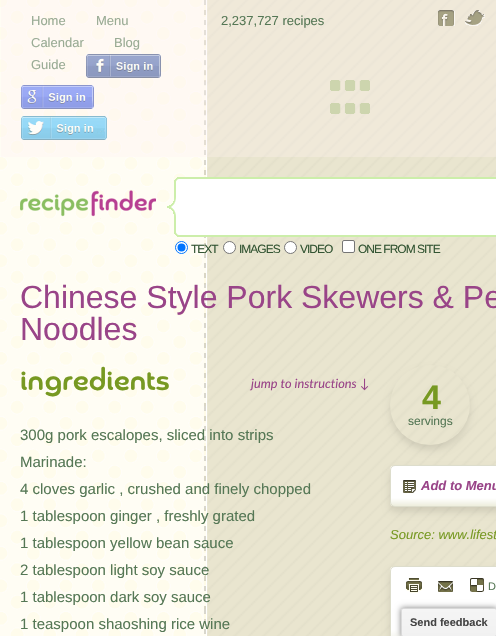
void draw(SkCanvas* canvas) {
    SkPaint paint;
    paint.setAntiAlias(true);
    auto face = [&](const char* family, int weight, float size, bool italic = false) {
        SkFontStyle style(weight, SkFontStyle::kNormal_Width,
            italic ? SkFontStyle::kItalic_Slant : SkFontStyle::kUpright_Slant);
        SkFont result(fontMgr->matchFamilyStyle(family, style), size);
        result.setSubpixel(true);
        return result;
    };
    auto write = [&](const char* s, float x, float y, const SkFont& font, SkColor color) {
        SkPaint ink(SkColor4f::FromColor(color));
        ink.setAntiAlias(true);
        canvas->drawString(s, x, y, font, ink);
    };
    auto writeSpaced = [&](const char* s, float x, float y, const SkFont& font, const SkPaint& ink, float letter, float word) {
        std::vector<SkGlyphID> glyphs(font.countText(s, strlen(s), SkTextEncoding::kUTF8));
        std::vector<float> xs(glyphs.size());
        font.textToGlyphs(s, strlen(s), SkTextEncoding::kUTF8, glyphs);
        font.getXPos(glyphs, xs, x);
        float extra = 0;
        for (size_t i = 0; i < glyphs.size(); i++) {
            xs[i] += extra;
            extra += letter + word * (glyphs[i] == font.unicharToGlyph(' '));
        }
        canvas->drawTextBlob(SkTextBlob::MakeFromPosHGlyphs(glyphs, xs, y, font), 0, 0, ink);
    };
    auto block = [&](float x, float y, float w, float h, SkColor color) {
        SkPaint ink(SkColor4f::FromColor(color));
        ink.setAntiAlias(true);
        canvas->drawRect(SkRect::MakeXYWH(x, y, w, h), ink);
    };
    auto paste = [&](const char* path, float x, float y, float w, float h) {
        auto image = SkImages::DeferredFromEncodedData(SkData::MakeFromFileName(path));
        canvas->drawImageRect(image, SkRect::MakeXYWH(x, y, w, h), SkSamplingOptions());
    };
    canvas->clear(SK_ColorWHITE);
    paste("pic1.png", 0, 0, 204, 636);
    paste("pic2.png", 204, 0, 292, 636);
    paste("pic8.png", 204, 35, 2, 86);
    paste("pic9.png", 330, 80, 40, 11);
    paste("pic10.png", 330, 103, 40, 11);
    block(1, 0, 495, 157, SkColorSetARGB(77, 255, 243, 241));
    auto kFont1 = face("Liberation Sans", 400, 13);
    write("Home", 31, 25, kFont1, SkColorSetRGB(153, 171, 148));
    write("Menu", 96, 25, kFont1, SkColorSetRGB(153, 171, 148));
    write("Calendar", 31, 47, kFont1, SkColorSetRGB(153, 171, 148));
    write("Blog", 114, 47, kFont1, SkColorSetRGB(153, 171, 148));
    write("Guide", 31, 69, kFont1, SkColorSetRGB(153, 171, 148));
    paste("pic3.png", 86, 54, 75, 24);
    paste("pic4.png", 21, 85, 73, 24);
    paste("pic5.png", 21, 116, 86, 24);
    write("2,237,727 recipes", 221, 25, kFont1, SkColorSetRGB(85, 119, 85));
    paste("pic6.png", 438, 10, 17, 16);
    paste("pic7.png", 465, 10, 20, 16);
    paste("pic11.png", 20, 190, 136, 29);
    paste("pic12.png", 167, 177, 12, 60);
    block(179, 179, 317, 56, SK_ColorWHITE);
    block(179, 177, 317, 2, SkColorSetRGB(204, 238, 170));
    block(179, 235, 317, 2, SkColorSetRGB(204, 238, 170));
    paint.setColor(SK_ColorWHITE);
    canvas->drawCircle(181.5f, 247.5f, 6, paint);
    paint.setStyle(SkPaint::kStroke_Style);
    paint.setStrokeWidth(1);
    paint.setColor(SkColorSetRGB(0, 117, 255));
    canvas->drawCircle(181.5f, 247.5f, 6, paint);
    paint.setStyle(SkPaint::kFill_Style);
    canvas->drawCircle(181.5f, 247.5f, 4, paint);
    auto kFont2 = face("Liberation Sans", 400, 12);
    paint.setColor(SkColorSetRGB(51, 85, 51));
    writeSpaced("TEXT", 191, 253, kFont2, paint, -1, 0);
    paint.setColor(SK_ColorWHITE);
    canvas->drawCircle(229.5f, 247.5f, 6, paint);
    paint.setStyle(SkPaint::kStroke_Style);
    paint.setColor(SkColorSetRGB(118, 118, 118));
    canvas->drawCircle(229.5f, 247.5f, 6, paint);
    paint.setStyle(SkPaint::kFill_Style);
    paint.setColor(SkColorSetRGB(51, 85, 51));
    writeSpaced("IMAGES", 239, 253, kFont2, paint, -1, 0);
    paint.setColor(SK_ColorWHITE);
    canvas->drawCircle(290.5f, 247.5f, 6, paint);
    paint.setStyle(SkPaint::kStroke_Style);
    paint.setColor(SkColorSetRGB(118, 118, 118));
    canvas->drawCircle(290.5f, 247.5f, 6, paint);
    paint.setStyle(SkPaint::kFill_Style);
    paint.setColor(SkColorSetRGB(51, 85, 51));
    writeSpaced("VIDEO", 300, 253, kFont2, paint, -1, 0);
    paint.setColor(SK_ColorWHITE);
    canvas->drawRoundRect(SkRect::MakeXYWH(342.5f, 240.5f, 12, 12), 1.5f, 1.5f, paint);
    paint.setStyle(SkPaint::kStroke_Style);
    paint.setColor(SkColorSetRGB(118, 118, 118));
    canvas->drawRoundRect(SkRect::MakeXYWH(342.5f, 240.5f, 12, 12), 1.5f, 1.5f, paint);
    paint.setStyle(SkPaint::kFill_Style);
    paint.setColor(SkColorSetRGB(51, 85, 51));
    writeSpaced("ONE FROM SITE", 358, 253, kFont2, paint, -1, 0);
    auto kFont3 = face("Liberation Sans", 400, 32);
    write("Chinese Style Pork Skewers & Pe", 20, 308, kFont3, SkColorSetRGB(153, 68, 136));
    write("Noodles", 20, 340, kFont3, SkColorSetRGB(153, 68, 136));
    auto kFont4 = face("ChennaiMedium", 500, 32);
    write("ingredients", 20, 390, kFont4, SkColorSetRGB(119, 153, 34));
    auto kFont5 = face("Lato", 400, 12.75f, true);
    write("jump to instructions ↓", 251, 388, kFont5, SkColorSetRGB(153, 68, 136));
    auto kFont6 = face("Liberation Sans", 400, 15);
    write("300g pork escalopes, sliced into strips", 20, 440, kFont6, SkColorSetRGB(85, 119, 85));
    write("Marinade:", 20, 467, kFont6, SkColorSetRGB(85, 119, 85));
    write("4 cloves garlic , crushed and finely chopped", 20, 494, kFont6, SkColorSetRGB(85, 119, 85));
    write("1 tablespoon ginger , freshly grated", 20, 521, kFont6, SkColorSetRGB(85, 119, 85));
    write("1 tablespoon yellow bean sauce", 20, 548, kFont6, SkColorSetRGB(85, 119, 85));
    write("2 tablespoon light soy sauce", 20, 575, kFont6, SkColorSetRGB(85, 119, 85));
    write("1 tablespoon dark soy sauce", 20, 602, kFont6, SkColorSetRGB(85, 119, 85));
    write("1 teaspoon shaoshing rice wine", 20, 629, kFont6, SkColorSetRGB(85, 119, 85));
    paint.setColor(SkColorSetARGB(26, 0, 0, 0));
    paint.setMaskFilter(SkMaskFilter::MakeBlur(kNormal_SkBlurStyle, 3.5f));
    canvas->drawRoundRect(SkRect::MakeXYWH(390, 370, 80, 80), 40, 40, paint);
    paint.setMaskFilter(nullptr);
    paste("pic13.png", 390, 365, 80, 80);
    auto kFont7 = face("Liberation Sans", 700, 34);
    paint.setColor(SkColorSetRGB(119, 153, 34));
    writeSpaced("4", 422, 409, kFont7, paint, -2, 0);
    write("servings", 408, 425, kFont2, SkColorSetRGB(85, 119, 85));
    paint.setColor(SkColorSetARGB(26, 0, 0, 0));
    paint.setMaskFilter(SkMaskFilter::MakeBlur(kNormal_SkBlurStyle, 3.5f));
    canvas->drawRoundRect(SkRect::MakeXYWH(390, 470, 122, 42), 5, 5, paint);
    paint.setMaskFilter(nullptr);
    canvas->save();
    canvas->clipPath(SkPathBuilder().moveTo(395, 465).lineTo(635, 465).cubicTo(638, 465, 640, 467, 640, 470).lineTo(640, 502).cubicTo(640, 505, 638, 507, 635, 507).lineTo(395, 507).cubicTo(392, 507, 390, 505, 390, 502).lineTo(390, 470).cubicTo(390, 467, 392, 465, 395, 465).close().detach(), true);
    {
        const SkColor colors[] = {SK_ColorWHITE, SkColorSetRGB(238, 238, 221)};
        const float stops[] = {0.8f, 1};
        const SkPoint ends[] = {{391, 466}, {391, 506}};
        paint.setShader(SkGradientShader::MakeLinear(ends, colors, stops, 2, SkTileMode::kClamp));
        paint.setAlpha(255);
    }
    canvas->drawRect(SkRect::MakeXYWH(390, 466, 106, 40), paint);
    canvas->restore();
    paint.setStyle(SkPaint::kStroke_Style);
    paint.setShader(nullptr);
    paint.setColor(SkColorSetRGB(221, 221, 204));
    canvas->drawRoundRect(SkRect::MakeXYWH(390.5f, 465.5f, 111, 41), 4.5f, 4.5f, paint);
    paste("pic14.png", 403, 480, 13, 13);
    auto kFont8 = face("Liberation Sans", 700, 13, true);
    write("Add to Menu", 421, 490, kFont8, SkColorSetRGB(153, 68, 136));
    auto kFont9 = face("Liberation Sans", 400, 13, true);
    write("Source: www.lifest", 390, 539, kFont9, SkColorSetRGB(119, 153, 34));
    paint.setStyle(SkPaint::kFill_Style);
    paint.setColor(SkColorSetARGB(26, 0, 0, 0));
    paint.setMaskFilter(SkMaskFilter::MakeBlur(kNormal_SkBlurStyle, 3.5f));
    canvas->drawRoundRect(SkRect::MakeXYWH(390, 571, 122, 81), 5, 5, paint);
    paint.setMaskFilter(nullptr);
    canvas->save();
    canvas->clipPath(SkPathBuilder().moveTo(395, 566).lineTo(635, 566).cubicTo(638, 566, 640, 568, 640, 571).lineTo(640, 642).cubicTo(640, 645, 638, 647, 635, 647).lineTo(395, 647).cubicTo(392, 647, 390, 645, 390, 642).lineTo(390, 571).cubicTo(390, 568, 392, 566, 395, 566).close().detach(), true);
    {
        const SkColor colors[] = {SK_ColorWHITE, SkColorSetRGB(238, 238, 221)};
        const float stops[] = {0.8f, 1};
        const SkPoint ends[] = {{391, 567}, {391, 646}};
        paint.setShader(SkGradientShader::MakeLinear(ends, colors, stops, 2, SkTileMode::kClamp));
        paint.setAlpha(255);
    }
    canvas->drawRect(SkRect::MakeXYWH(390, 567, 106, 69), paint);
    canvas->restore();
    paint.setStyle(SkPaint::kStroke_Style);
    paint.setShader(nullptr);
    paint.setColor(SkColorSetRGB(221, 221, 204));
    canvas->drawRoundRect(SkRect::MakeXYWH(390.5f, 566.5f, 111, 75), 4.5f, 4.5f, paint);
    paste("pic15.png", 406, 578, 16, 15);
    paste("pic16.png", 438, 581, 15, 11);
    paste("pic17.png", 470, 578, 14, 14);
    auto kFont10 = face("Liberation Sans", 400, 11);
    write("D", 488, 590, kFont10, SkColorSetRGB(85, 119, 85));
    paint.setStyle(SkPaint::kFill_Style);
    paint.setColor(SkColorSetRGB(128, 128, 128));
    paint.setMaskFilter(SkMaskFilter::MakeBlur(kNormal_SkBlurStyle, 3));
    canvas->drawRect(SkRect::MakeXYWH(401, 608, 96, 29), paint);
    paint.setMaskFilter(nullptr);
    canvas->save();
    canvas->clipPath(SkPathBuilder().moveTo(403, 608).lineTo(495, 608).cubicTo(496, 608, 497, 609, 497, 610).lineTo(497, 635).cubicTo(497, 636, 496, 637, 495, 637).lineTo(403, 637).cubicTo(402, 637, 401, 636, 401, 635).lineTo(401, 610).cubicTo(401, 609, 402, 608, 403, 608).close().detach(), true);
    {
        const SkColor colors[] = {SkColorSetRGB(245, 245, 245), SkColorSetRGB(241, 241, 241)};
        const float stops[] = {0, 1};
        const SkPoint ends[] = {{449, 582}, {449, 609}};
        paint.setShader(SkGradientShader::MakeLinear(ends, colors, stops, 2, SkTileMode::kClamp));
        paint.setAlpha(255);
    }
    canvas->drawRect(SkRect::MakeXYWH(401, 608, 95, 1), paint);
    canvas->restore();
    {
        const SkColor colors[] = {SkColorSetRGB(245, 245, 245), SkColorSetRGB(241, 241, 241)};
        const float stops[] = {0, 1};
        const SkPoint ends[] = {{449, 609}, {449, 636}};
        paint.setShader(SkGradientShader::MakeLinear(ends, colors, stops, 2, SkTileMode::kClamp));
        paint.setAlpha(255);
    }
    canvas->drawRect(SkRect::MakeXYWH(401, 609, 95, 27), paint);
    paint.setStyle(SkPaint::kStroke_Style);
    paint.setShader(nullptr);
    paint.setColor(SkColorSetARGB(26, 0, 0, 0));
    canvas->drawRoundRect(SkRect::MakeXYWH(401.5f, 608.5f, 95, 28), 1.5f, 1.5f, paint);
    auto kFont11 = face("Liberation Sans", 700, 11);
    write("Send feedback", 410, 626, kFont11, SkColorSetRGB(68, 68, 68));
}
